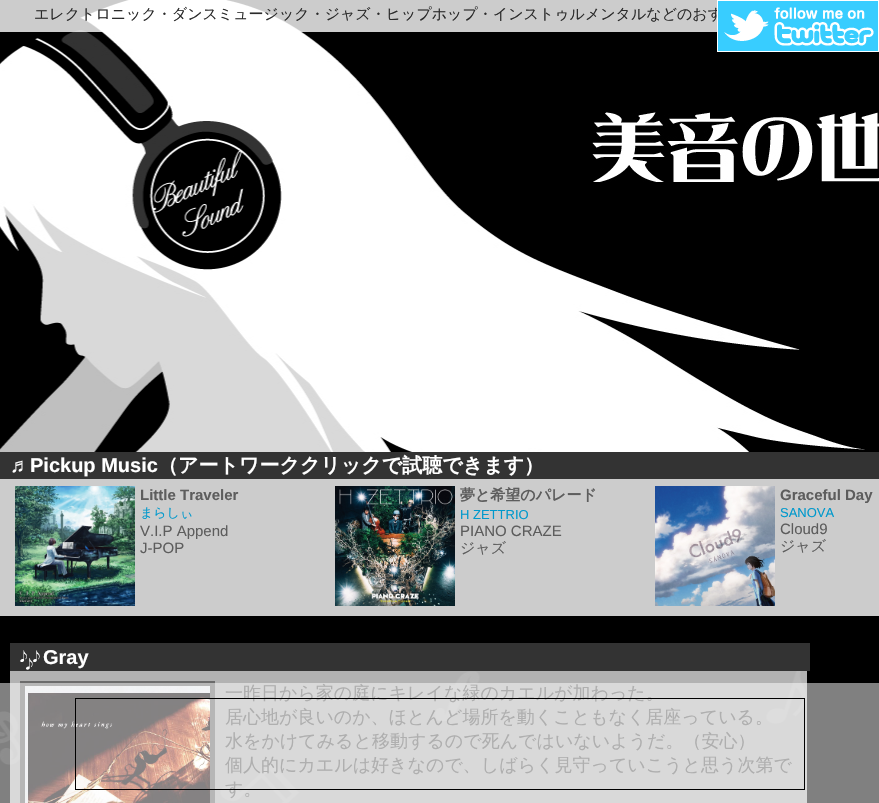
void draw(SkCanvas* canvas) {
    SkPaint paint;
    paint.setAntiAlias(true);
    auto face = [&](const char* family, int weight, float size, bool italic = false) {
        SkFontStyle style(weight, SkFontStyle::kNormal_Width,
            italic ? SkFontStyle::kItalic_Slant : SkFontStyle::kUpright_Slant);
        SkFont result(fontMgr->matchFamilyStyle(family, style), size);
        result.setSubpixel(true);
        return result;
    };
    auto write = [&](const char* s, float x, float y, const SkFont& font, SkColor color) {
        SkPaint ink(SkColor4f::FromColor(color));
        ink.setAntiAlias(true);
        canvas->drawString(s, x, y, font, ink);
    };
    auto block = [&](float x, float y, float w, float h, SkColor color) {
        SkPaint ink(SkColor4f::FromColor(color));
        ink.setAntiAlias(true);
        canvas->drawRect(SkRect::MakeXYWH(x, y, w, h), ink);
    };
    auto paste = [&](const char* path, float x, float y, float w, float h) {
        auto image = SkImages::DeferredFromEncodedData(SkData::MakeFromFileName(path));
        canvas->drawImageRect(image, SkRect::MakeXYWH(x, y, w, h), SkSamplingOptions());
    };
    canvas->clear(SK_ColorBLACK);
    paste("pic1.png", 0, 0, 865, 452);
    block(0, 0, 717, 32, SkColorSetARGB(204, 255, 255, 255));
    auto kFont1 = face("WenQuanYi Zen Hei", 500, 15);
    write("エレクトロニック・ダンスミュージック・ジャズ・ヒップホップ・インストゥルメンタルなどのおす", 34, 19, kFont1, SkColorSetRGB(43, 43, 43));
    paint.setStyle(SkPaint::kStroke_Style);
    paint.setStrokeWidth(1);
    paint.setColor(SK_ColorWHITE);
    canvas->drawRect(SkRect::MakeXYWH(717.5f, 0.5f, 161, 51), paint);
    paste("pic2.png", 718, 1, 160, 50);
    paste("pic3.png", 592, 112, 287, 70);
    block(0, 452, 879, 27, SkColorSetRGB(51, 51, 51));
    auto kFont2 = face("Liberation Sans", 700, 20);
    write("♬Pickup Music", 10, 472, kFont2, SK_ColorWHITE);
    auto kFont3 = face("WenQuanYi Zen Hei", 700, 20);
    write("（アートワーククリックで試聴できます）", 158, 472, kFont3, SK_ColorWHITE);
    block(0, 479, 879, 137, SkColorSetRGB(204, 204, 204));
    paste("pic4.png", 15, 486, 120, 120);
    auto kFont4 = face("Liberation Sans", 700, 15);
    write("Little Traveler", 140, 500, kFont4, SkColorSetRGB(93, 93, 93));
    auto kFont5 = face("WenQuanYi Zen Hei", 500, 13);
    write("まらしぃ", 140, 517, kFont5, SkColorSetRGB(0, 153, 204));
    auto kFont6 = face("Liberation Sans", 400, 15);
    write("V.I.P Append", 140, 536, kFont6, SkColorSetRGB(93, 93, 93));
    write("J-POP", 140, 553, kFont6, SkColorSetRGB(93, 93, 93));
    paste("pic5.png", 335, 486, 120, 120);
    auto kFont7 = face("WenQuanYi Zen Hei", 700, 15);
    write("夢と希望のパレード", 460, 500, kFont7, SkColorSetRGB(93, 93, 93));
    auto kFont8 = face("Liberation Sans", 400, 13);
    write("H ZETTRIO", 460, 519, kFont8, SkColorSetRGB(0, 153, 204));
    write("PIANO CRAZE", 460, 536, kFont6, SkColorSetRGB(93, 93, 93));
    write("ジャズ", 460, 553, kFont1, SkColorSetRGB(93, 93, 93));
    paste("pic6.png", 655, 486, 120, 120);
    write("Graceful Day", 780, 500, kFont4, SkColorSetRGB(93, 93, 93));
    write("SANOVA", 780, 517, kFont8, SkColorSetRGB(0, 153, 204));
    write("Cloud9", 780, 534, kFont6, SkColorSetRGB(93, 93, 93));
    write("ジャズ", 780, 551, kFont1, SkColorSetRGB(93, 93, 93));
    paste("pic7.png", 0, 669, 807, 134);
    block(10, 643, 800, 28, SkColorSetRGB(51, 51, 51));
    paste("pic8.png", 20, 650, 20, 20);
    write("Gray", 43, 664, kFont2, SK_ColorWHITE);
    block(20, 681, 195, 122, SkColorSetARGB(102, 0, 0, 0));
    paste("pic9.png", 25, 686, 185, 117);
    auto kFont9 = face("WenQuanYi Zen Hei", 500, 18);
    write("一昨日から家の庭にキレイな緑のカエルが加わった。", 225, 699, kFont9, SkColorSetRGB(93, 93, 93));
    write("居心地が良いのか、ほとんど場所を動くこともなく居座っている。", 225, 723, kFont9, SkColorSetRGB(93, 93, 93));
    write("水をかけてみると移動するので死んではいないようだ。（安心）", 225, 747, kFont9, SkColorSetRGB(93, 93, 93));
    write("個人的にカエルは好きなので、しばらく見守っていこうと思う次第で", 225, 771, kFont9, SkColorSetRGB(93, 93, 93));
    write("す。", 225, 795, kFont9, SkColorSetRGB(93, 93, 93));
    block(0, 683, 879, 120, SkColorSetARGB(128, 255, 255, 255));
    paint.setColor(SK_ColorBLACK);
    canvas->drawRect(SkRect::MakeXYWH(75.5f, 698.5f, 729, 91), paint);
}
